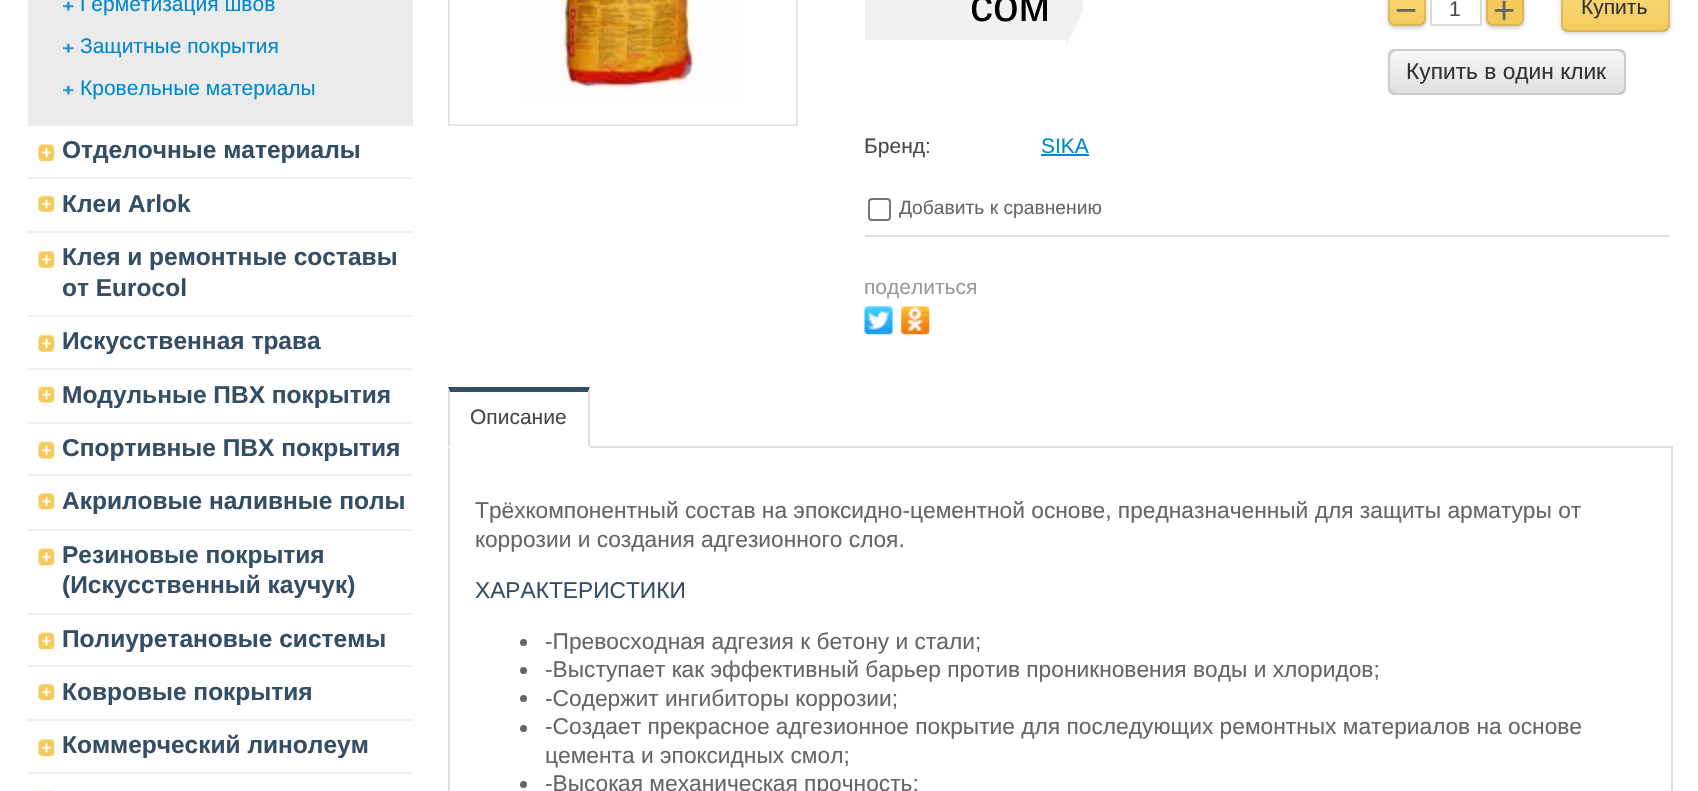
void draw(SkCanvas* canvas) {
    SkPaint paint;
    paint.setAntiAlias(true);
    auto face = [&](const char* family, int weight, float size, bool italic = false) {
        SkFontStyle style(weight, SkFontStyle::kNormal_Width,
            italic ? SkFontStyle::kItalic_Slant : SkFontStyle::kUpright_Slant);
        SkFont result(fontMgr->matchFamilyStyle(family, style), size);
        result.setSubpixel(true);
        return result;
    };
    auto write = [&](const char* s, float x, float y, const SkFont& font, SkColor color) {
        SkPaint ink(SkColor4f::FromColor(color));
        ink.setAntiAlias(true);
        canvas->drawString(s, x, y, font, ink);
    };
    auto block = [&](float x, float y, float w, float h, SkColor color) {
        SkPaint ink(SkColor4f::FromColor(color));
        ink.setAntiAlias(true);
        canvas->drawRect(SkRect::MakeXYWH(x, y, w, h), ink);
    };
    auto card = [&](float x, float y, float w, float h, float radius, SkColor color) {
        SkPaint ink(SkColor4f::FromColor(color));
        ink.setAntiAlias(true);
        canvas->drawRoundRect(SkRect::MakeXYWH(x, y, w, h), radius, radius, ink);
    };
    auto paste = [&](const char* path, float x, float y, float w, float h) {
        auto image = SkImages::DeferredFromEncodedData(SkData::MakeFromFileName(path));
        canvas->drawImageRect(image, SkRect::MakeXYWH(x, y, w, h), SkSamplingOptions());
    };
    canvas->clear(SK_ColorWHITE);
    block(28, 0, 385, 126, SkColorSetRGB(235, 235, 235));
    paste("pic1.png", 63, 1, 11, 10);
    auto kFont1 = face("Liberation Sans", 400, 21);
    write("Герметизация швов", 80, 11, kFont1, SkColorSetRGB(0, 136, 204));
    paste("pic1.png", 63, 43, 11, 10);
    write("Защитные покрытия", 80, 53, kFont1, SkColorSetRGB(0, 136, 204));
    paste("pic1.png", 63, 85, 11, 10);
    write("Кровельные материалы", 80, 95, kFont1, SkColorSetRGB(0, 136, 204));
    paste("pic2.png", 38, 144, 17, 17);
    block(28, 177, 385, 2, SkColorSetRGB(241, 241, 241));
    auto kFont2 = face("Liberation Sans", 700, 24.5f);
    write("Отделочные материалы", 62, 158, kFont2, SkColorSetRGB(52, 78, 102));
    paste("pic3.png", 38, 195, 17, 17);
    block(28, 231, 385, 2, SkColorSetRGB(241, 241, 241));
    write("Клеи Arlok", 62, 212, kFont2, SkColorSetRGB(52, 78, 102));
    paste("pic4.png", 38, 250, 17, 18);
    block(28, 315, 385, 2, SkColorSetRGB(241, 241, 241));
    write("Клея и ремонтные составы", 62, 265, kFont2, SkColorSetRGB(52, 78, 102));
    write("от Eurocol", 62, 296, kFont2, SkColorSetRGB(52, 78, 102));
    paste("pic4.png", 38, 334, 17, 18);
    block(28, 368, 385, 2, SkColorSetRGB(241, 241, 241));
    write("Искусственная трава", 62, 349, kFont2, SkColorSetRGB(52, 78, 102));
    paste("pic5.png", 38, 386, 17, 17);
    block(28, 422, 385, 2, SkColorSetRGB(241, 241, 241));
    write("Модульные ПВХ покрытия", 62, 403, kFont2, SkColorSetRGB(52, 78, 102));
    paste("pic6.png", 38, 441, 17, 18);
    block(28, 474, 385, 2, SkColorSetRGB(241, 241, 241));
    write("Спортивные ПВХ покрытия", 62, 456, kFont2, SkColorSetRGB(52, 78, 102));
    paste("pic7.png", 38, 493, 17, 17);
    block(28, 529, 385, 2, SkColorSetRGB(241, 241, 241));
    write("Акриловые наливные полы", 62, 509, kFont2, SkColorSetRGB(52, 78, 102));
    paste("pic8.png", 38, 548, 17, 18);
    block(28, 613, 385, 2, SkColorSetRGB(241, 241, 241));
    write("Резиновые покрытия", 62, 563, kFont2, SkColorSetRGB(52, 78, 102));
    write("(Искусственный каучук)", 62, 593, kFont2, SkColorSetRGB(52, 78, 102));
    paste("pic8.png", 38, 632, 17, 18);
    block(28, 665, 385, 2, SkColorSetRGB(241, 241, 241));
    write("Полиуретановые системы", 62, 647, kFont2, SkColorSetRGB(52, 78, 102));
    paste("pic9.png", 38, 683, 17, 17);
    block(28, 719, 385, 2, SkColorSetRGB(241, 241, 241));
    write("Ковровые покрытия", 62, 700, kFont2, SkColorSetRGB(52, 78, 102));
    paste("pic2.png", 38, 739, 17, 17);
    block(28, 772, 385, 2, SkColorSetRGB(241, 241, 241));
    write("Коммерческий линолеум", 62, 753, kFont2, SkColorSetRGB(52, 78, 102));
    paste("pic10.png", 39, 790, 15, 1);
    paint.setStyle(SkPaint::kStroke_Style);
    paint.setStrokeWidth(2);
    paint.setColor(SkColorSetRGB(224, 224, 224));
    canvas->drawRect(SkRect::MakeXYWH(449, -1, 348, 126), paint);
    paste("pic11.png", 449, 0, 348, 125);
    block(865, 0, 201, 40, SkColorSetRGB(241, 241, 241));
    auto kFont3 = face("Liberation Sans", 400, 46);
    write("сом", 970, 21, kFont3, SK_ColorBLACK);
    paste("pic12.png", 1066, 0, 17, 44);
    paint.setColor(SkColorSetRGB(219, 219, 219));
    canvas->drawRect(SkRect::MakeXYWH(1431, -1, 50, 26), paint);
    paint.setStyle(SkPaint::kFill_Style);
    paint.setColor(SkColorSetARGB(51, 0, 0, 0));
    paint.setMaskFilter(SkMaskFilter::MakeBlur(kNormal_SkBlurStyle, 2));
    canvas->drawRoundRect(SkRect::MakeXYWH(1388, -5, 38, 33), 7, 7, paint);
    paint.setMaskFilter(nullptr);
    {
        const SkColor colors[] = {SkColorSetRGB(247, 218, 121), SkColorSetRGB(244, 202, 93)};
        const float stops[] = {0, 1};
        const SkPoint ends[] = {{1407, -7}, {1407, 26}};
        paint.setShader(SkGradientShader::MakeLinear(ends, colors, stops, 2, SkTileMode::kClamp));
        paint.setAlpha(255);
    }
    canvas->drawRoundRect(SkRect::MakeXYWH(1388, -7, 38, 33), 7, 7, paint);
    paint.setStyle(SkPaint::kStroke_Style);
    paint.setShader(nullptr);
    paint.setColor(SkColorSetARGB(26, 0, 0, 0));
    canvas->drawRoundRect(SkRect::MakeXYWH(1389, -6, 36, 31), 6, 6, paint);
    auto kFont4 = face("Liberation Sans", 400, 38);
    write("−", 1395, 23, kFont4, SkColorSetRGB(102, 102, 102));
    write("1", 1449, 16, kFont1, SkColorSetRGB(72, 72, 72));
    paint.setStyle(SkPaint::kFill_Style);
    paint.setColor(SkColorSetARGB(51, 0, 0, 0));
    paint.setMaskFilter(SkMaskFilter::MakeBlur(kNormal_SkBlurStyle, 2));
    canvas->drawRoundRect(SkRect::MakeXYWH(1486, -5, 38, 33), 7, 7, paint);
    paint.setMaskFilter(nullptr);
    card(1486, -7, 38, 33, 7, SkColorSetRGB(244, 202, 93));
    paint.setStyle(SkPaint::kStroke_Style);
    paint.setColor(SkColorSetARGB(26, 0, 0, 0));
    canvas->drawRoundRect(SkRect::MakeXYWH(1487, -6, 36, 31), 6, 6, paint);
    write("+", 1493, 23, kFont4, SkColorSetRGB(102, 102, 102));
    paint.setStyle(SkPaint::kFill_Style);
    paint.setColor(SkColorSetARGB(51, 0, 0, 0));
    paint.setMaskFilter(SkMaskFilter::MakeBlur(kNormal_SkBlurStyle, 2));
    canvas->drawRoundRect(SkRect::MakeXYWH(1561, -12, 109, 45), 7, 7, paint);
    paint.setMaskFilter(nullptr);
    {
        const SkColor colors[] = {SkColorSetRGB(247, 218, 121), SkColorSetRGB(244, 202, 93)};
        const float stops[] = {0, 1};
        const SkPoint ends[] = {{1615, -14}, {1615, 32}};
        paint.setShader(SkGradientShader::MakeLinear(ends, colors, stops, 2, SkTileMode::kClamp));
        paint.setAlpha(255);
    }
    canvas->drawRoundRect(SkRect::MakeXYWH(1561, -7, 109, 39), 7, 7, paint);
    paint.setStyle(SkPaint::kStroke_Style);
    paint.setShader(nullptr);
    paint.setColor(SkColorSetARGB(26, 0, 0, 0));
    canvas->drawRoundRect(SkRect::MakeXYWH(1562, -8, 107, 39), 6, 6, paint);
    write("Купить", 1581, 14, kFont1, SkColorSetRGB(51, 51, 51));
    paint.setStyle(SkPaint::kFill_Style);
    {
        const SkColor colors[] = {SkColorSetRGB(248, 248, 248), SkColorSetRGB(223, 223, 223)};
        const float stops[] = {0, 1};
        const SkPoint ends[] = {{1507, 49}, {1507, 95}};
        paint.setShader(SkGradientShader::MakeLinear(ends, colors, stops, 2, SkTileMode::kClamp));
        paint.setAlpha(255);
    }
    canvas->drawRoundRect(SkRect::MakeXYWH(1388, 49, 238, 46), 7, 7, paint);
    paint.setShader(nullptr);
    paint.setColor(SkColorSetRGB(204, 204, 204));
    canvas->drawPath(SkPathBuilder().moveTo(1391, 50).cubicTo(1389, 52, 1388, 54, 1388, 56).lineTo(1388, 88).cubicTo(1388, 92, 1391, 95, 1395, 95).lineTo(1619, 95).cubicTo(1622, 95, 1624, 93, 1625, 91).cubicTo(1624, 92, 1622, 93, 1620, 93).lineTo(1396, 93).cubicTo(1393, 93, 1390, 90, 1390, 86).lineTo(1390, 54).close().detach(), paint);
    canvas->drawPath(SkPathBuilder().moveTo(1393, 51).lineTo(1617, 51).cubicTo(1621, 51, 1624, 54, 1624, 58).lineTo(1624, 89).cubicTo(1624, 91, 1623, 93, 1621, 95).cubicTo(1624, 94, 1626, 91, 1626, 88).lineTo(1626, 56).cubicTo(1626, 52, 1623, 49, 1619, 49).lineTo(1395, 49).cubicTo(1393, 49, 1390, 50, 1389, 52).close().detach(), paint);
    canvas->drawPath(SkPathBuilder().moveTo(1389, 92).cubicTo(1390, 94, 1393, 95, 1395, 95).lineTo(1619, 95).cubicTo(1623, 95, 1626, 92, 1626, 88).lineTo(1626, 56).cubicTo(1626, 54, 1625, 51, 1623, 50).cubicTo(1624, 51, 1624, 53, 1624, 54).lineTo(1624, 86).cubicTo(1624, 90, 1621, 93, 1617, 93).lineTo(1393, 93).cubicTo(1392, 93, 1390, 93, 1389, 92).close().detach(), paint);
    canvas->drawPath(SkPathBuilder().moveTo(1396, 51).lineTo(1620, 51).cubicTo(1622, 51, 1624, 52, 1625, 53).cubicTo(1624, 51, 1622, 49, 1619, 49).lineTo(1395, 49).cubicTo(1391, 49, 1388, 52, 1388, 56).lineTo(1388, 88).cubicTo(1388, 91, 1390, 93, 1392, 94).cubicTo(1391, 93, 1390, 91, 1390, 89).lineTo(1390, 58).cubicTo(1390, 54, 1393, 51, 1396, 51).close().detach(), paint);
    auto kFont5 = face("Liberation Sans", 400, 22.75f);
    write("Купить в один клик", 1406, 79, kFont5, SkColorSetRGB(51, 51, 51));
    write("Бренд:", 864, 153, kFont1, SkColorSetRGB(72, 72, 72));
    write("SIKA", 1041, 153, kFont1, SkColorSetRGB(0, 136, 204));
    block(1041, 154, 48, 2, SkColorSetRGB(0, 136, 204));
    block(865, 235, 805, 2, SkColorSetRGB(222, 222, 222));
    paint.setStyle(SkPaint::kStroke_Style);
    paint.setColor(SkColorSetRGB(118, 118, 118));
    canvas->drawRoundRect(SkRect::MakeXYWH(869, 199, 21, 21), 3, 3, paint);
    auto kFont6 = face("Liberation Sans", 400, 19.25f);
    write("Добавить к сравнению", 899, 214, kFont6, SkColorSetRGB(102, 102, 102));
    write("поделиться", 864, 294, kFont1, SkColorSetRGB(153, 153, 153));
    paste("pic13.png", 864, 306, 29, 29);
    paste("pic14.png", 901, 306, 29, 29);
    block(590, 446, 1083, 2, SkColorSetRGB(221, 221, 221));
    paint.setStyle(SkPaint::kFill_Style);
    paint.setColor(SkColorSetRGB(52, 78, 102));
    canvas->drawPath(SkPathBuilder().moveTo(448, 387).lineTo(590, 387).lineTo(588, 392).lineTo(450, 392).close().detach(), paint);
    paint.setColor(SkColorSetRGB(221, 221, 221));
    canvas->drawPath(SkPathBuilder().moveTo(590, 387).lineTo(590, 448).lineTo(588, 446).lineTo(588, 392).close().detach(), paint);
    block(588, 446, 2, 2, SK_ColorWHITE);
    canvas->drawPath(SkPathBuilder().moveTo(448, 448).lineTo(448, 387).lineTo(450, 392).lineTo(450, 446).close().detach(), paint);
    write("Описание", 470, 424, kFont1, SkColorSetRGB(72, 72, 72));
    block(1671, 448, 2, 343, SkColorSetRGB(221, 221, 221));
    block(448, 448, 2, 343, SkColorSetRGB(221, 221, 221));
    write("Трёхкомпонентный состав на эпоксидно-цементной основе, предназначенный для защиты арматуры от", 475, 518, kFont5, SkColorSetRGB(102, 102, 102));
    write("коррозии и создания адгезионного слоя.", 475, 547, kFont5, SkColorSetRGB(102, 102, 102));
    write("ХАРАКТЕРИСТИКИ", 475, 598, kFont5, SkColorSetRGB(52, 78, 102));
    paint.setColor(SkColorSetRGB(102, 102, 102));
    canvas->drawCircle(523.5f, 642.5f, 3.5f, paint);
    write("-Превосходная адгезия к бетону и стали;", 545, 649, kFont5, SkColorSetRGB(102, 102, 102));
    canvas->drawCircle(523.5f, 670.5f, 3.5f, paint);
    write("-Выступает как эффективный барьер против проникновения воды и хлоридов;", 545, 677, kFont5, SkColorSetRGB(102, 102, 102));
    canvas->drawCircle(523.5f, 698.5f, 3.5f, paint);
    write("-Содержит ингибиторы коррозии;", 545, 706, kFont5, SkColorSetRGB(102, 102, 102));
    canvas->drawCircle(523.5f, 728.5f, 3.5f, paint);
    write("-Создает прекрасное адгезионное покрытие для последующих ремонтных материалов на основе", 545, 734, kFont5, SkColorSetRGB(102, 102, 102));
    write("цемента и эпоксидных смол;", 545, 763, kFont5, SkColorSetRGB(102, 102, 102));
    canvas->drawCircle(523.5f, 784.5f, 3.5f, paint);
    write("-Высокая механическая прочность;", 545, 791, kFont5, SkColorSetRGB(102, 102, 102));
}
